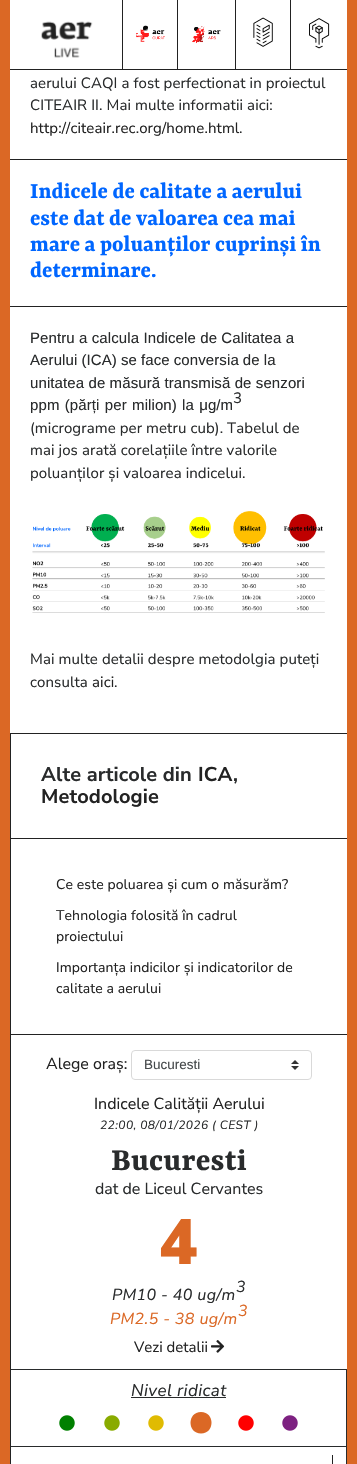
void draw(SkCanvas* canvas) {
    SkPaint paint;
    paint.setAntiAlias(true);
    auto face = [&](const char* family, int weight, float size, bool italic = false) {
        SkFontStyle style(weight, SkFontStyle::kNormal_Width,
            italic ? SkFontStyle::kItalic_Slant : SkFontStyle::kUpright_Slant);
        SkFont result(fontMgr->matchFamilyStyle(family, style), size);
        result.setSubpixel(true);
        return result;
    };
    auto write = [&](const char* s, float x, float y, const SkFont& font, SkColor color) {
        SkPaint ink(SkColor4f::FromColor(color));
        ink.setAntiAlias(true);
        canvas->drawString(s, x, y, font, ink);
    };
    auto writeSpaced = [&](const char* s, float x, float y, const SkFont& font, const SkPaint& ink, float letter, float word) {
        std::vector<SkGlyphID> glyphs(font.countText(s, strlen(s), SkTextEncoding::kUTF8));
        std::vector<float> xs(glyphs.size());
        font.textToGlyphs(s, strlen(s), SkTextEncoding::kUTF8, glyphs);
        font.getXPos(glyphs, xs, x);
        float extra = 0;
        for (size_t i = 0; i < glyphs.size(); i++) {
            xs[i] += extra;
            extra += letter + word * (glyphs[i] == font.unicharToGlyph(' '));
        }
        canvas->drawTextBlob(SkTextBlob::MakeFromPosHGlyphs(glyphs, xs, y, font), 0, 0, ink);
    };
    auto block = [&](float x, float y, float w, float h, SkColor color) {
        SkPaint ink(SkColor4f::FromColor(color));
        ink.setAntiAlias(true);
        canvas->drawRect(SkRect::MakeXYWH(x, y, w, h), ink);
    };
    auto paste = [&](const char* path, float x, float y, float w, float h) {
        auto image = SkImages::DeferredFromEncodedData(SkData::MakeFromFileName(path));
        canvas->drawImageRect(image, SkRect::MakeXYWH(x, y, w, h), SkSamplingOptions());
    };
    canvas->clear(SkColorSetRGB(219, 104, 37));
    block(10, 0, 337, 69, SK_ColorWHITE);
    block(10, 69, 337, 1, SkColorSetRGB(34, 34, 34));
    paste("pic1.png", 41, 21, 52, 37);
    block(177, 0, 1, 69, SkColorSetRGB(34, 34, 34));
    block(122, 0, 1, 69, SkColorSetRGB(34, 34, 34));
    paste("pic2.png", 136, 25, 29, 17);
    paste("pic3.png", 192, 26, 29, 18);
    block(235, 0, 1, 69, SkColorSetRGB(34, 34, 34));
    block(290, 0, 1, 69, SkColorSetRGB(34, 34, 34));
    paste("pic4.png", 253, 17, 20, 30);
    paste("pic5.png", 309, 18, 21, 31);
    block(10, 70, 337, 663, SK_ColorWHITE);
    block(10, 733, 337, 1, SkColorSetRGB(34, 34, 34));
    auto kFont1 = face("Nunito Sans", 400, 15);
    paint.setColor(SkColorSetRGB(41, 43, 44));
    writeSpaced("aerului CAQI a fost perfectionat in proiectul", 30, 88, kFont1, paint, 0.1f, 0);
    writeSpaced("CITEAIR II. Mai multe informatii aici:", 30, 110, kFont1, paint, 0.1f, 0);
    paint.setColor(SkColorSetRGB(34, 34, 34));
    writeSpaced("http://citeair.rec.org/home.html", 30, 133, kFont1, paint, 0.1f, 0);
    paint.setColor(SkColorSetRGB(41, 43, 44));
    writeSpaced(".", 239, 133, kFont1, paint, 0.1f, 0);
    block(10, 159, 337, 1, SkColorSetRGB(34, 34, 34));
    auto kFont2 = face("Yrsa", 700, 24);
    write("Indicele de calitate a aerului", 30, 198, kFont2, SkColorSetRGB(0, 102, 255));
    write("este dat de valoarea cea mai", 30, 225, kFont2, SkColorSetRGB(0, 102, 255));
    write("mare a poluanților cuprinși în", 30, 251, kFont2, SkColorSetRGB(0, 102, 255));
    write("determinare.", 30, 277, kFont2, SkColorSetRGB(0, 102, 255));
    block(10, 306, 337, 1, SkColorSetRGB(34, 34, 34));
    auto kFont3 = face("Liberation Sans", 400, 15);
    writeSpaced("Pentru a calcula Indicele de Calitatea a", 30, 343, kFont3, paint, 0.1f, 0);
    writeSpaced("Aerului (ICA) se face conversia de la", 30, 365, kFont3, paint, 0.1f, -0.25f);
    writeSpaced("unitatea de măsură transmisă de senzori", 30, 388, kFont3, paint, 0.1f, 0);
    writeSpaced("ppm (părți per milion)", 30, 410, kFont3, paint, 0.1f, 1);
    writeSpaced("la μg/m", 182, 410, kFont3, paint, 0.1f, 1);
    writeSpaced("3", 233, 403, kFont1, paint, 0.1f, 0);
    writeSpaced("(micrograme per metru cub). Tabelul de", 30, 433, kFont1, paint, 0.1f, 0);
    writeSpaced("mai jos arată corelațiile între valorile", 30, 455, kFont1, paint, 0.1f, 0);
    writeSpaced("poluanților și valoarea indicelui.", 30, 478, kFont1, paint, 0.1f, 0);
    paste("pic6.png", 32, 511, 293, 102);
    writeSpaced("Mai multe detalii despre metodolgia puteți", 30, 664, kFont1, paint, 0.1f, 0);
    writeSpaced("consulta", 30, 687, kFont1, paint, 0.1f, 0);
    paint.setColor(SkColorSetRGB(34, 34, 34));
    writeSpaced("aici", 92, 687, kFont1, paint, 0.1f, 0);
    paint.setColor(SkColorSetRGB(41, 43, 44));
    writeSpaced(".", 114, 687, kFont1, paint, 0.1f, 0);
    block(11, 734, 336, 730, SK_ColorWHITE);
    block(10, 734, 1, 730, SkColorSetRGB(34, 34, 34));
    block(11, 838, 336, 1, SkColorSetRGB(34, 34, 34));
    auto kFont4 = face("Nunito Sans", 700, 20);
    writeSpaced("Alte articole din", 41, 781, kFont4, paint, 0.1f, 0);
    paint.setColor(SkColorSetRGB(34, 34, 34));
    writeSpaced("ICA", 198, 781, kFont4, paint, 0.1f, 0);
    paint.setColor(SkColorSetRGB(41, 43, 44));
    writeSpaced(",", 233, 781, kFont4, paint, 0.1f, 0);
    paint.setColor(SkColorSetRGB(34, 34, 34));
    writeSpaced("Metodologie", 41, 803, kFont4, paint, 0.1f, 0);
    block(11, 1034, 336, 1, SkColorSetRGB(34, 34, 34));
    auto kFont5 = face("Nunito Sans", 400, 14);
    writeSpaced("Ce este poluarea și cum o măsurăm?", 56, 889, kFont5, paint, 0.1f, 0);
    writeSpaced("Tehnologia folosită în cadrul", 56, 920, kFont5, paint, 0.1f, 0);
    writeSpaced("proiectului", 56, 941, kFont5, paint, 0.1f, 0);
    writeSpaced("Importanța indicilor și indicatorilor de", 56, 972, kFont5, paint, 0.1f, 0);
    writeSpaced("calitate a aerului", 56, 993, kFont5, paint, 0.1f, 0);
    auto kFont6 = face("Nunito Sans", 400, 16);
    write("Alege oraș:", 46, 1069, kFont6, SkColorSetRGB(34, 34, 34));
    paste("pic7.png", 291, 1060, 8, 10);
    paint.setStyle(SkPaint::kStroke_Style);
    paint.setStrokeWidth(1);
    paint.setColor(SkColorSetRGB(217, 217, 217));
    canvas->drawRoundRect(SkRect::MakeXYWH(131.5f, 1050.5f, 180, 29), 3.5f, 3.5f, paint);
    auto kFont7 = face("Liberation Sans", 400, 13.5f);
    write("Bucuresti", 144, 1069, kFont7, SkColorSetRGB(70, 74, 76));
    write("Indicele Calității Aerului", 94, 1109, kFont6, SkColorSetRGB(34, 34, 34));
    auto kFont8 = face("Nunito Sans", 200, 12, true);
    paint.setStyle(SkPaint::kFill_Style);
    paint.setColor(SkColorSetRGB(41, 43, 44));
    writeSpaced("22:00, 08/01/2026 ( CEST )", 100, 1129, kFont8, paint, 0.4f, 0);
    auto kFont9 = face("Yrsa", 700, 34);
    writeSpaced("Bucuresti", 111, 1170, kFont9, paint, 0.25f, 0);
    write("dat de Liceul Cervantes", 95, 1194, kFont6, SkColorSetRGB(41, 43, 44));
    auto kFont10 = face("Nunito Sans", 900, 64);
    paint.setColor(SkColorSetRGB(219, 104, 37));
    writeSpaced("4", 159, 1264, kFont10, paint, 2, 0);
    auto kFont11 = face("Nunito Sans", 200, 16, true);
    paint.setColor(SkColorSetRGB(41, 43, 44));
    writeSpaced("PM10 - 40 ug/m", 112, 1300, kFont11, paint, 0.4f, 0);
    writeSpaced("3", 236, 1292, kFont11, paint, 0.4f, 0);
    paint.setColor(SkColorSetRGB(219, 104, 37));
    writeSpaced("PM2.5 - 38 ug/m", 110, 1324, kFont11, paint, 0.4f, 0);
    writeSpaced("3", 238, 1316, kFont11, paint, 0.4f, 0);
    write("Vezi detalii", 134, 1352, kFont1, SkColorSetRGB(34, 34, 34));
    paste("pic8.png", 211, 1340, 14, 13);
    block(11, 1369, 336, 1, SkColorSetRGB(41, 43, 44));
    block(346, 1370, 1, 76, SkColorSetRGB(41, 43, 44));
    auto kFont12 = face("Nunito Sans", 200, 17, true);
    paint.setColor(SkColorSetRGB(41, 43, 44));
    writeSpaced("Nivel ridicat", 131, 1396, kFont12, paint, 0.4f, 0);
    block(131, 1397, 95, 1, SkColorSetRGB(41, 43, 44));
    paste("pic9.png", 59, 1415, 16, 16);
    paste("pic10.png", 104, 1415, 16, 16);
    paste("pic11.png", 148, 1415, 16, 16);
    paint.setColor(SkColorSetRGB(219, 104, 37));
    canvas->drawPath(SkPathBuilder().moveTo(201, 1412).cubicTo(187, 1412, 187, 1433.5f, 201, 1433.5f).cubicTo(215, 1433.5f, 215, 1412, 201, 1412).close().detach(), paint);
    paste("pic12.png", 238, 1415, 16, 16);
    paste("pic13.png", 282, 1415, 16, 16);
    block(11, 1446, 336, 1, SkColorSetRGB(41, 43, 44));
    block(346, 1446, 1, 18, SkColorSetRGB(41, 43, 44));
    block(332, 1455, 1, 9, SkColorSetRGB(34, 34, 34));
}
